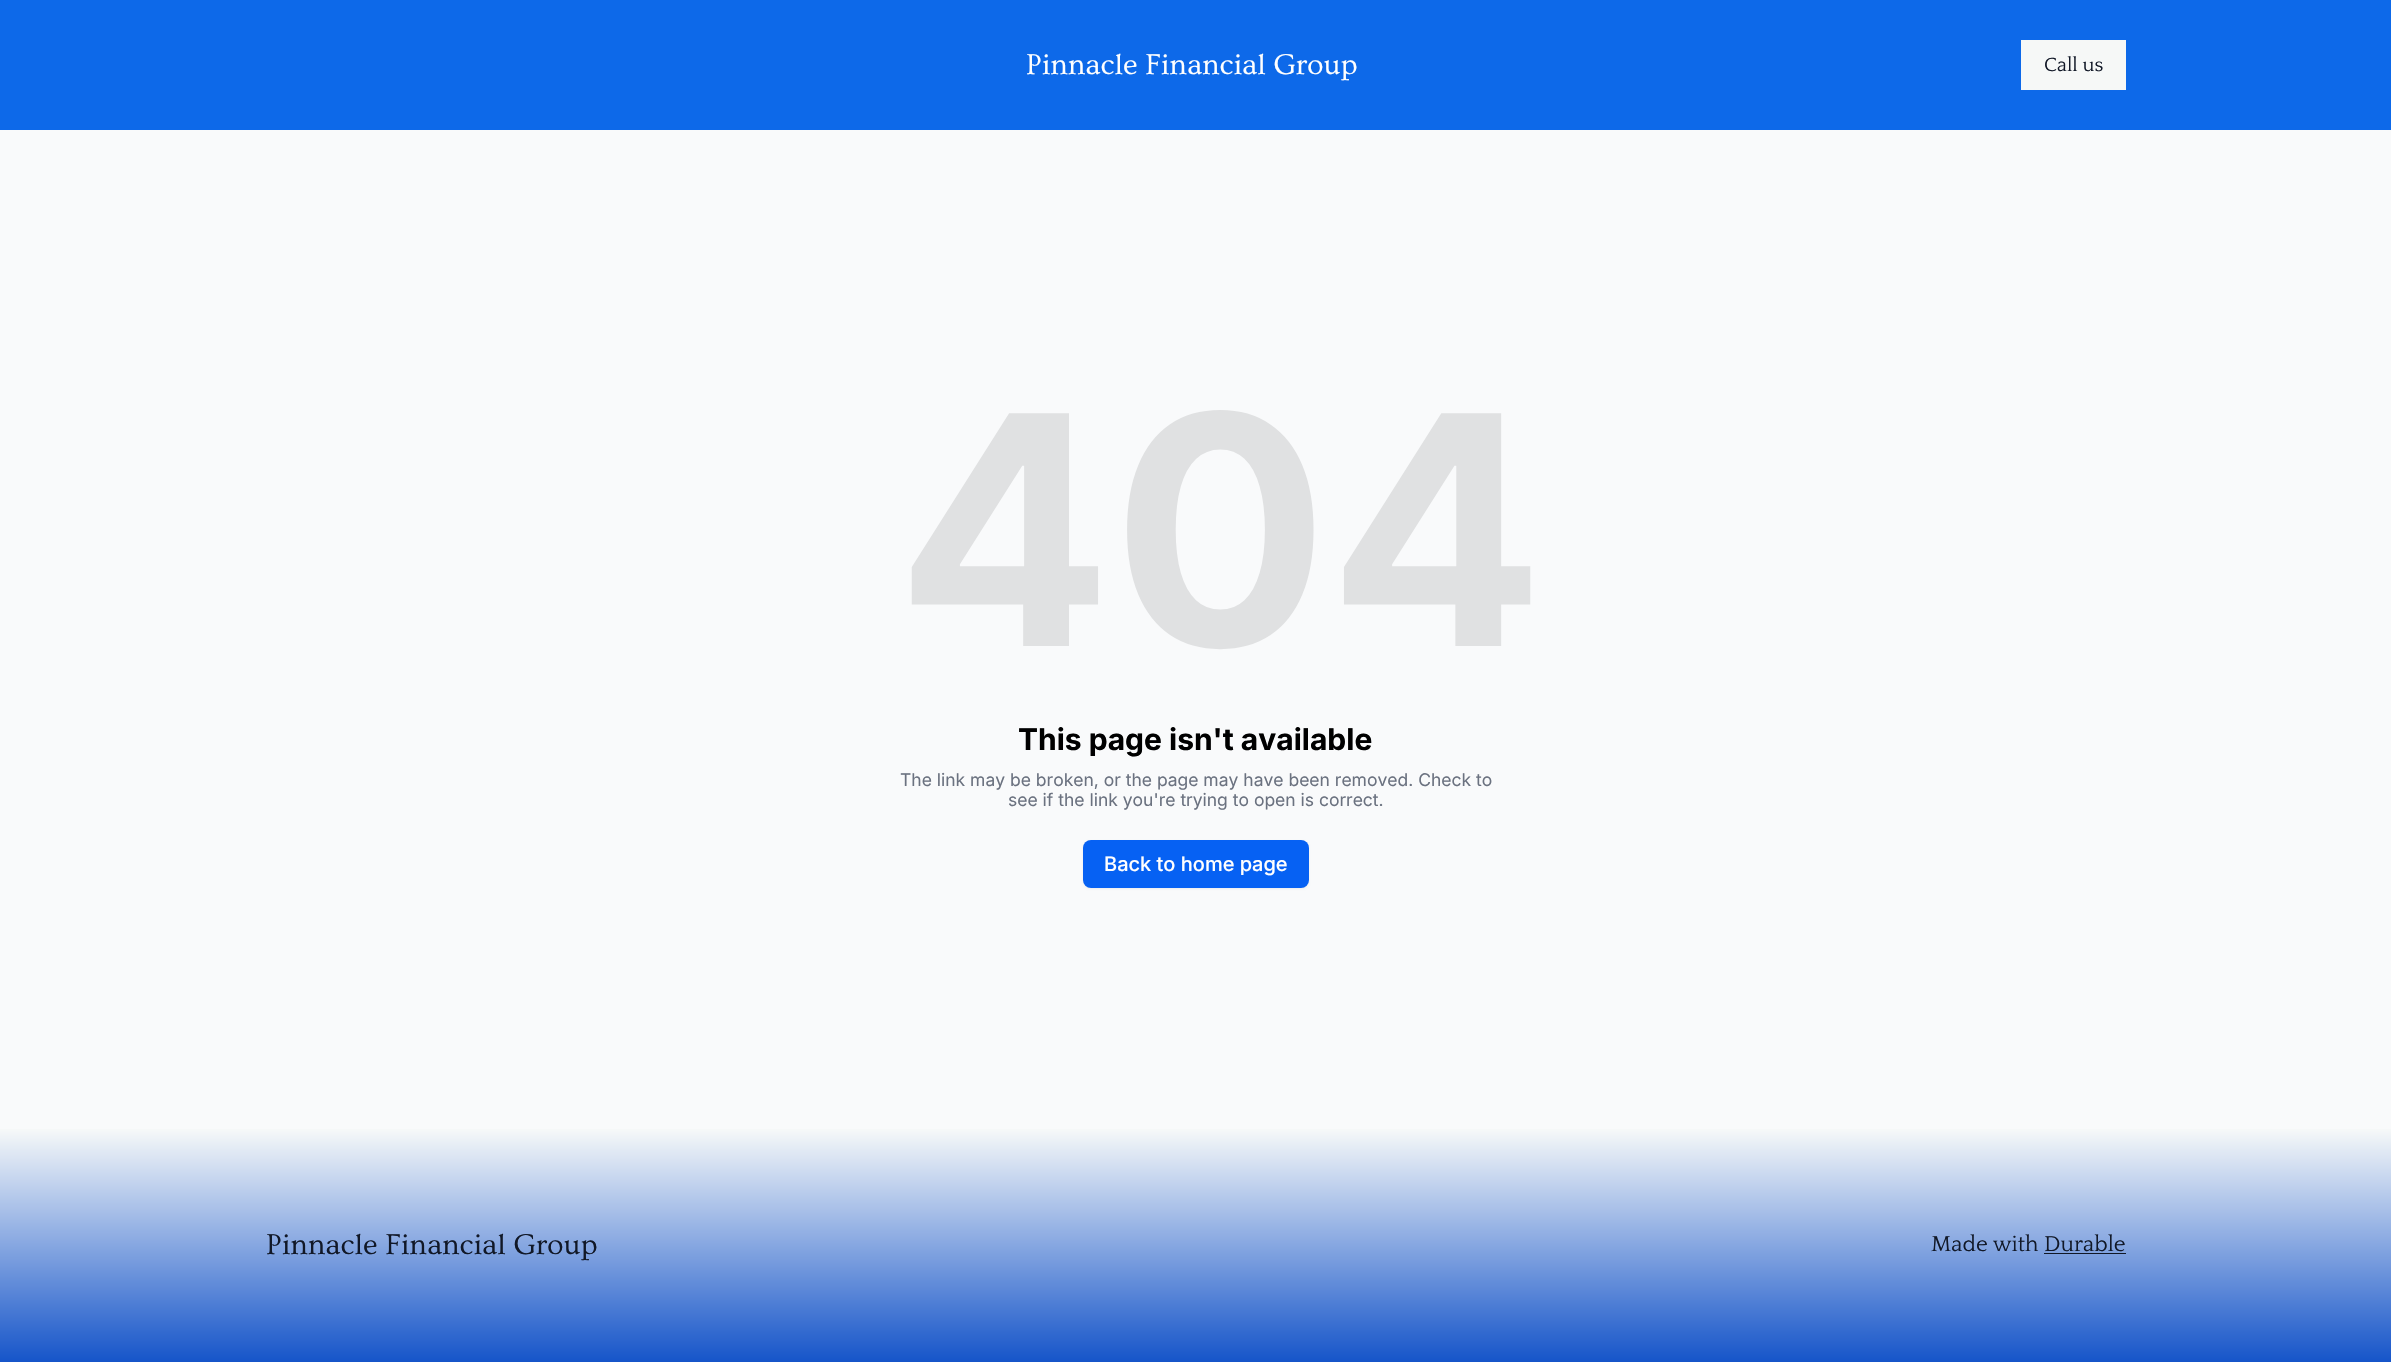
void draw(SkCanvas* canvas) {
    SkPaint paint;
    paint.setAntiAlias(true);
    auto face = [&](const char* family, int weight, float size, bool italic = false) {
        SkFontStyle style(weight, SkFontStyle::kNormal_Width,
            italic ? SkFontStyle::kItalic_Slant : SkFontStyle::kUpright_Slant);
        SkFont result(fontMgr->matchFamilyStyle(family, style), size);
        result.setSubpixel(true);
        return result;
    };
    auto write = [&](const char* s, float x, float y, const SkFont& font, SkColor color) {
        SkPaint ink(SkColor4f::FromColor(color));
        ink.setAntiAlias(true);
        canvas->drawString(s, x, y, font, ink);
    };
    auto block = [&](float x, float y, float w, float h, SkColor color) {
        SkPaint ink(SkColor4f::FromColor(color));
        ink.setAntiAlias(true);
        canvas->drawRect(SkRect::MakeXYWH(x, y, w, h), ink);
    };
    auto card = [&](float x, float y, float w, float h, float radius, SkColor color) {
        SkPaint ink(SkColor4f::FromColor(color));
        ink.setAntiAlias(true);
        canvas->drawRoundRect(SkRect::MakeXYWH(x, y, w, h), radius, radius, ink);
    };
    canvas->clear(SkColorSetRGB(249, 250, 251));
    block(0, 0, 2391, 130, SkColorSetRGB(13, 105, 233));
    auto kFont1 = face("Ovo", 400, 30);
    write("Pinnacle Financial Group", 1026, 74, kFont1, SK_ColorWHITE);
    block(2021, 40, 105, 50, SkColorSetRGB(246, 248, 247));
    auto kFont2 = face("Quattrocento", 400, 20);
    write("Call us", 2044, 71, kFont2, SkColorSetRGB(17, 24, 39));
    auto kFont3 = face("Inter", 700, 320);
    write("404", 896, 646, kFont3, SkColorSetRGB(224, 225, 226));
    auto kFont4 = face("Inter", 700, 30);
    write("This page isn't available", 1018, 750, kFont4, SK_ColorBLACK);
    auto kFont5 = face("Inter", 400, 17.5f);
    write("The link may be broken, or the page may have been removed. Check to", 900, 786, kFont5, SkColorSetRGB(107, 114, 128));
    write("see if the link you're trying to open is correct.", 1008, 806, kFont5, SkColorSetRGB(107, 114, 128));
    paint.setColor(SkColorSetARGB(13, 0, 0, 0));
    paint.setMaskFilter(SkMaskFilter::MakeBlur(kNormal_SkBlurStyle, 1));
    canvas->drawRoundRect(SkRect::MakeXYWH(1083, 841, 226, 48), 8, 8, paint);
    paint.setMaskFilter(nullptr);
    card(1083, 840, 226, 48, 8, SkColorSetRGB(6, 97, 243));
    auto kFont6 = face("Inter", 500, 20);
    write("Back to home page", 1104, 871, kFont6, SK_ColorWHITE);
    {
        const SkColor colors[] = {SkColorSetRGB(248, 250, 249), SkColorSetRGB(21, 84, 201)};
        const float stops[] = {0, 1};
        const SkPoint ends[] = {{1196, 1127}, {1196, 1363}};
        paint.setShader(SkGradientShader::MakeLinear(ends, colors, stops, 2, SkTileMode::kClamp));
        paint.setAlpha(255);
    }
    canvas->drawRect(SkRect::MakeXYWH(0, 1129, 2391, 233), paint);
    write("Pinnacle Financial Group", 266, 1254, kFont1, SkColorSetRGB(17, 24, 39));
    auto kFont7 = face("Quattrocento", 400, 22.5f);
    write("Made with Durable", 1931, 1251, kFont7, SkColorSetRGB(17, 24, 39));
    block(2044, 1253, 82, 1, SkColorSetRGB(17, 24, 39));
}
